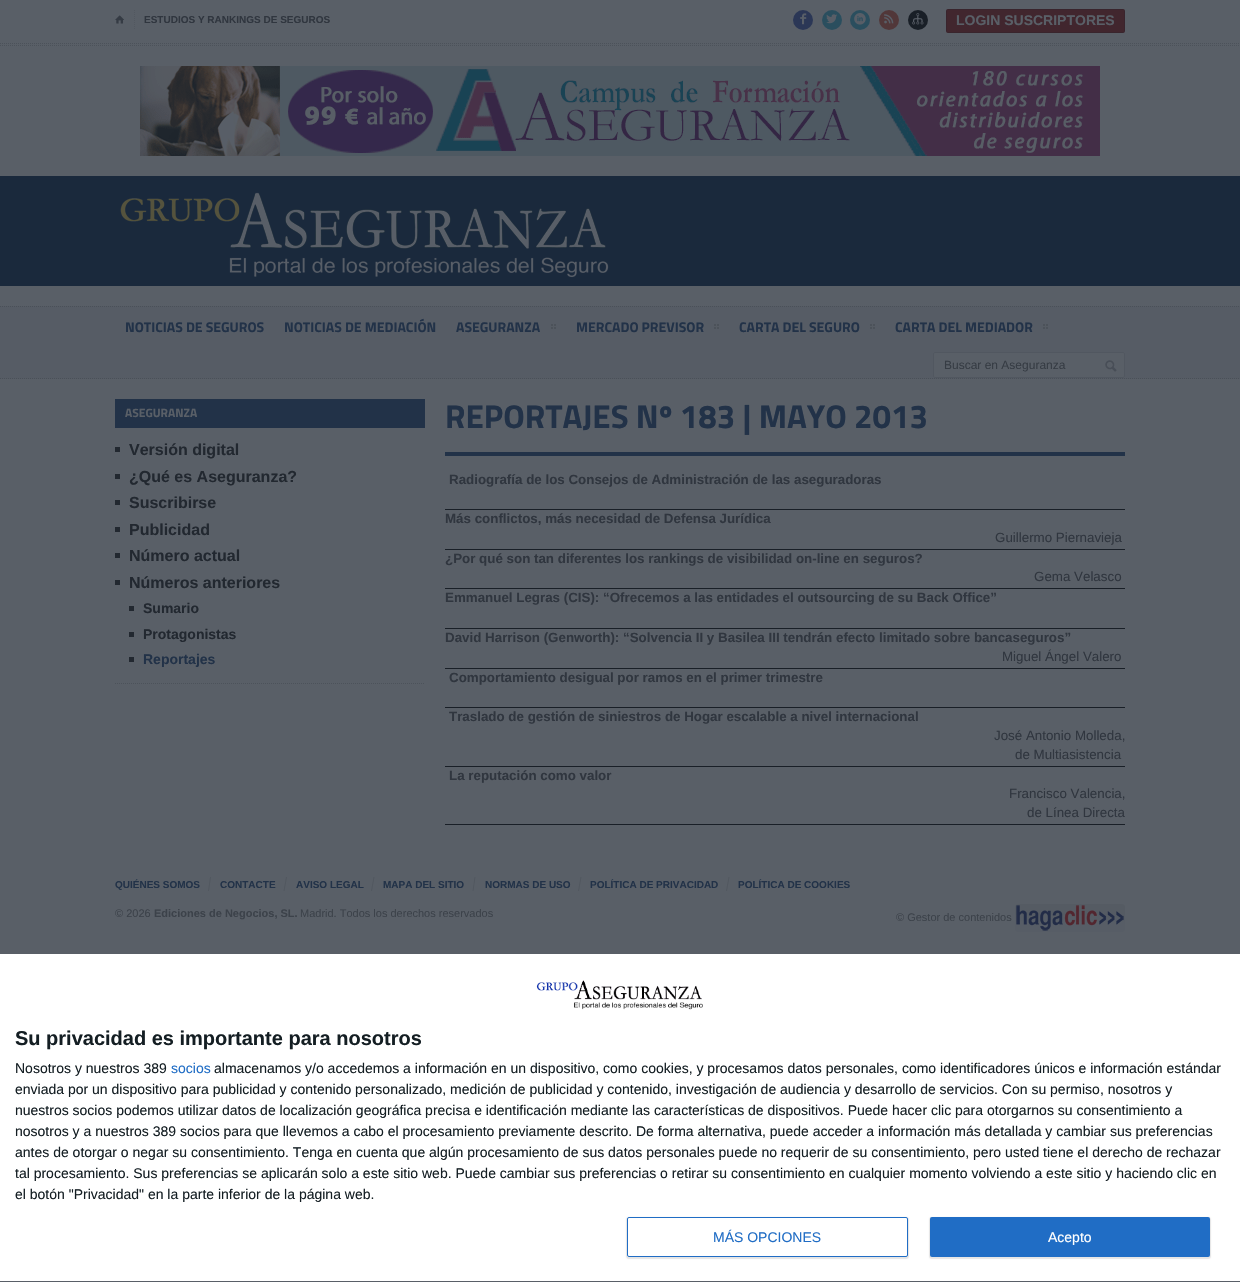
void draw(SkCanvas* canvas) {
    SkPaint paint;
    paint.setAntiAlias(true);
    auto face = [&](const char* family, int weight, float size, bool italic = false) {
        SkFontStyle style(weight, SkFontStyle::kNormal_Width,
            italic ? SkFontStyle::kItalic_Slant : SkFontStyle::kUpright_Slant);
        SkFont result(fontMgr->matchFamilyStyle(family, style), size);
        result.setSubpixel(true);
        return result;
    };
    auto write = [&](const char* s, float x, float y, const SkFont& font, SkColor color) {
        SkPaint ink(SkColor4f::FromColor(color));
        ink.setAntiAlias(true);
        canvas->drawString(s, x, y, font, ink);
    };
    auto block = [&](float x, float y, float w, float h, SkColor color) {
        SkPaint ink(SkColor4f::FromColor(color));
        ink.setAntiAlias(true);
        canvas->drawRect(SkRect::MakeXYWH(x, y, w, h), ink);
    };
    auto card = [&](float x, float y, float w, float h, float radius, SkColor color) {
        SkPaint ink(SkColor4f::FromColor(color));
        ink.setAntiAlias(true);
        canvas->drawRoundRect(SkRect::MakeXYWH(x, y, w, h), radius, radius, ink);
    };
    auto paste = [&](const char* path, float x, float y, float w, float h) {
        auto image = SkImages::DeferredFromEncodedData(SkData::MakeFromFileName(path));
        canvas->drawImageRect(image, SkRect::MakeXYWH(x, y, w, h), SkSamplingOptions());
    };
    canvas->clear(SkColorSetRGB(89, 95, 103));
    paint.setStyle(SkPaint::kStroke_Style);
    paint.setStrokeWidth(1);
    paint.setColor(SkColorSetRGB(82, 88, 96));
    paint.setPathEffect(SkDashPathEffect::Make({{1, 1}}, 0));
    canvas->drawPath(SkPathBuilder().moveTo(134.5f, 10).lineTo(134.5f, 29).detach(), paint);
    paint.setPathEffect(nullptr);
    paste("pic1.png", 115, 15, 9, 9);
    auto kFont1 = face("Liberation Sans", 700, 10);
    write("ESTUDIOS Y RANKINGS DE SEGUROS", 144, 23, kFont1, SkColorSetRGB(48, 54, 63));
    paint.setStyle(SkPaint::kFill_Style);
    paint.setColor(SkColorSetRGB(43, 55, 86));
    canvas->drawCircle(803, 20, 10, paint);
    paste("pic2.png", 800, 13, 7, 12);
    paint.setColor(SkColorSetRGB(42, 78, 94));
    canvas->drawCircle(832, 20, 10, paint);
    paste("pic3.png", 826, 14, 11, 10);
    canvas->drawCircle(860, 20, 10, paint);
    paste("pic4.png", 854, 13, 12, 12);
    paint.setColor(SkColorSetRGB(81, 55, 57));
    canvas->drawCircle(889, 20, 10, paint);
    paste("pic5.png", 884, 14, 10, 10);
    paint.setColor(SkColorSetRGB(25, 31, 39));
    canvas->drawCircle(918, 20, 10, paint);
    paste("pic6.png", 912, 13, 12, 12);
    card(946, 9, 179, 24, 2, SkColorSetRGB(65, 38, 46));
    paint.setStyle(SkPaint::kStroke_Style);
    paint.setColor(SkColorSetARGB(51, 25, 31, 39));
    canvas->drawRoundRect(SkRect::MakeXYWH(946.5f, 9.5f, 178, 23), 1.5f, 1.5f, paint);
    auto kFont2 = face("Liberation Sans", 700, 14);
    write("LOGIN SUSCRIPTORES", 956, 25, kFont2, SkColorSetRGB(89, 95, 103));
    paint.setColor(SkColorSetRGB(76, 82, 90));
    paint.setPathEffect(SkDashPathEffect::Make({{1, 1}}, 0));
    canvas->drawPath(SkPathBuilder().moveTo(0, 43.5f).lineTo(1240, 43.5f).detach(), paint);
    paint.setPathEffect(nullptr);
    paint.setPathEffect(SkDashPathEffect::Make({{1, 1}}, 0));
    canvas->drawPath(SkPathBuilder().moveTo(0, 45.5f).lineTo(1240, 45.5f).detach(), paint);
    paint.setPathEffect(nullptr);
    paste("pic7.png", 140, 66, 960, 90);
    block(0, 176, 1240, 110, SkColorSetRGB(26, 41, 60));
    paste("pic8.png", 120, 192, 489, 86);
    block(0, 306, 1240, 73, SkColorSetRGB(86, 92, 101));
    paint.setColor(SkColorSetRGB(74, 80, 88));
    paint.setPathEffect(SkDashPathEffect::Make({{1, 1}}, 0));
    canvas->drawPath(SkPathBuilder().moveTo(0, 306.5f).lineTo(1240, 306.5f).detach(), paint);
    paint.setPathEffect(nullptr);
    paint.setPathEffect(SkDashPathEffect::Make({{1, 1}}, 0));
    canvas->drawPath(SkPathBuilder().moveTo(0, 378.5f).lineTo(1240, 378.5f).detach(), paint);
    paint.setPathEffect(nullptr);
    auto kFont3 = face("Titillium Web", 700, 14);
    write("NOTICIAS DE SEGUROS", 125, 332, kFont3, SkColorSetRGB(34, 50, 72));
    write("NOTICIAS DE MEDIACIÓN", 284, 332, kFont3, SkColorSetRGB(34, 50, 72));
    write("ASEGURANZA", 456, 332, kFont3, SkColorSetRGB(34, 50, 72));
    block(551, 324, 5, 5, SkColorSetRGB(76, 82, 90));
    paste("pic9.png", 551, 324, 5, 5);
    write("MERCADO PREVISOR", 576, 332, kFont3, SkColorSetRGB(34, 50, 72));
    block(714, 324, 5, 5, SkColorSetRGB(76, 82, 90));
    paste("pic9.png", 714, 324, 5, 5);
    write("CARTA DEL SEGURO", 739, 332, kFont3, SkColorSetRGB(34, 50, 72));
    block(870, 324, 5, 5, SkColorSetRGB(76, 82, 90));
    paste("pic9.png", 870, 324, 5, 5);
    write("CARTA DEL MEDIADOR", 895, 332, kFont3, SkColorSetRGB(34, 50, 72));
    block(1043, 324, 5, 5, SkColorSetRGB(76, 82, 90));
    paste("pic9.png", 1043, 324, 5, 5);
    paint.setStyle(SkPaint::kFill_Style);
    paint.setColor(SkColorSetRGB(89, 95, 103));
    canvas->drawRoundRect(SkRect::MakeXYWH(933.5f, 352.5f, 191, 25), 1.5f, 1.5f, paint);
    paint.setStyle(SkPaint::kStroke_Style);
    paint.setColor(SkColorSetRGB(81, 87, 96));
    canvas->drawRoundRect(SkRect::MakeXYWH(933.5f, 352.5f, 191, 25), 1.5f, 1.5f, paint);
    auto kFont4 = face("Liberation Sans", 400, 12);
    write("Buscar en Aseguranza", 944, 369, kFont4, SkColorSetRGB(54, 60, 68));
    paste("pic10.png", 1105, 360, 12, 12);
    paint.setColor(SkColorSetRGB(76, 82, 90));
    paint.setPathEffect(SkDashPathEffect::Make({{1, 1}}, 0));
    canvas->drawPath(SkPathBuilder().moveTo(115, 683.5f).lineTo(425, 683.5f).detach(), paint);
    paint.setPathEffect(nullptr);
    block(115, 399, 310, 29, SkColorSetRGB(34, 50, 72));
    auto kFont5 = face("Titillium Web", 700, 12);
    write("ASEGURANZA", 125, 417, kFont5, SkColorSetRGB(89, 95, 103));
    block(115, 447, 5, 5, SkColorSetRGB(34, 40, 48));
    auto kFont6 = face("Liberation Sans", 700, 16);
    write("Versión digital", 129, 455, kFont6, SkColorSetRGB(34, 40, 48));
    block(115, 474, 5, 5, SkColorSetRGB(34, 40, 48));
    write("¿Qué es Aseguranza?", 129, 482, kFont6, SkColorSetRGB(34, 40, 48));
    block(115, 500, 5, 5, SkColorSetRGB(34, 40, 48));
    write("Suscribirse", 129, 508, kFont6, SkColorSetRGB(34, 40, 48));
    block(115, 527, 5, 5, SkColorSetRGB(34, 40, 48));
    write("Publicidad", 129, 535, kFont6, SkColorSetRGB(34, 40, 48));
    block(115, 553, 5, 5, SkColorSetRGB(34, 40, 48));
    write("Número actual", 129, 561, kFont6, SkColorSetRGB(34, 40, 48));
    block(115, 580, 5, 5, SkColorSetRGB(34, 40, 48));
    write("Números anteriores", 129, 588, kFont6, SkColorSetRGB(34, 40, 48));
    block(129, 606, 5, 5, SkColorSetRGB(34, 40, 48));
    write("Sumario", 143, 613, kFont2, SkColorSetRGB(34, 40, 48));
    block(129, 632, 5, 5, SkColorSetRGB(34, 40, 48));
    write("Protagonistas", 143, 639, kFont2, SkColorSetRGB(34, 40, 48));
    block(129, 657, 5, 5, SkColorSetRGB(34, 40, 48));
    write("Reportajes", 143, 664, kFont2, SkColorSetRGB(34, 50, 72));
    block(445, 452, 680, 4, SkColorSetRGB(34, 50, 72));
    auto kFont7 = face("Titillium Web", 700, 33);
    write("REPORTAJES Nº 183 | MAYO 2013", 445, 428, kFont7, SkColorSetRGB(34, 50, 72));
    auto kFont8 = face("Liberation Sans", 700, 13.35f);
    write("Radiografía de los Consejos de Administración de las aseguradoras", 449, 484, kFont8, SkColorSetRGB(48, 54, 63));
    block(445, 509, 680, 1, SkColorSetRGB(25, 31, 39));
    write("Más conflictos, más necesidad de Defensa Jurídica", 445, 523, kFont8, SkColorSetRGB(48, 54, 63));
    block(445, 549, 680, 1, SkColorSetRGB(25, 31, 39));
    auto kFont9 = face("Liberation Sans", 400, 13.35f);
    write("Guillermo Piernavieja", 995, 542, kFont9, SkColorSetRGB(48, 54, 63));
    write("¿Por qué son tan diferentes los rankings de visibilidad on-line en seguros?", 445, 563, kFont8, SkColorSetRGB(48, 54, 63));
    block(445, 588, 680, 1, SkColorSetRGB(25, 31, 39));
    write("Gema Velasco", 1034, 581, kFont9, SkColorSetRGB(48, 54, 63));
    write("Emmanuel Legras (CIS): “Ofrecemos a las entidades el outsourcing de su Back Office”", 445, 602, kFont8, SkColorSetRGB(48, 54, 63));
    block(445, 628, 680, 1, SkColorSetRGB(25, 31, 39));
    write("David Harrison (Genworth): “Solvencia II y Basilea III tendrán efecto limitado sobre bancaseguros”", 445, 642, kFont8, SkColorSetRGB(48, 54, 63));
    block(445, 668, 680, 1, SkColorSetRGB(25, 31, 39));
    write("Miguel Ángel Valero", 1002, 661, kFont9, SkColorSetRGB(48, 54, 63));
    write("Comportamiento desigual por ramos en el primer trimestre", 449, 682, kFont8, SkColorSetRGB(48, 54, 63));
    block(445, 707, 680, 1, SkColorSetRGB(25, 31, 39));
    write("Traslado de gestión de siniestros de Hogar escalable a nivel internacional", 449, 721, kFont8, SkColorSetRGB(48, 54, 63));
    write("José Antonio Molleda,", 994, 740, kFont9, SkColorSetRGB(48, 54, 63));
    block(445, 766, 680, 1, SkColorSetRGB(25, 31, 39));
    write("de Multiasistencia", 1015, 759, kFont9, SkColorSetRGB(48, 54, 63));
    write("La reputación como valor", 449, 780, kFont8, SkColorSetRGB(48, 54, 63));
    write("Francisco Valencia,", 1009, 798, kFont9, SkColorSetRGB(48, 54, 63));
    block(445, 824, 680, 1, SkColorSetRGB(25, 31, 39));
    write("de Línea Directa", 1027, 817, kFont9, SkColorSetRGB(48, 54, 63));
    write("QUIÉNES SOMOS", 115, 888, kFont1, SkColorSetRGB(34, 50, 72));
    paint.setStyle(SkPaint::kFill_Style);
    paint.setColor(SkColorSetRGB(81, 87, 95));
    canvas->drawPath(SkPathBuilder().moveTo(210, 877).lineTo(211, 877).lineTo(209, 891).lineTo(208, 891).close().detach(), paint);
    write("CONTACTE", 220, 888, kFont1, SkColorSetRGB(34, 50, 72));
    canvas->drawPath(SkPathBuilder().moveTo(286, 877).lineTo(287, 877).lineTo(284.5f, 891).lineTo(283.5f, 891).close().detach(), paint);
    write("AVISO LEGAL", 296, 888, kFont1, SkColorSetRGB(34, 50, 72));
    canvas->drawPath(SkPathBuilder().moveTo(373.5f, 877).lineTo(374.5f, 877).lineTo(372, 891).lineTo(371, 891).close().detach(), paint);
    write("MAPA DEL SITIO", 383, 888, kFont1, SkColorSetRGB(34, 50, 72));
    canvas->drawPath(SkPathBuilder().moveTo(474.5f, 877).lineTo(475.5f, 877).lineTo(473.5f, 891).lineTo(472.5f, 891).close().detach(), paint);
    write("NORMAS DE USO", 485, 888, kFont1, SkColorSetRGB(34, 50, 72));
    canvas->drawPath(SkPathBuilder().moveTo(580.5f, 877).lineTo(581.5f, 877).lineTo(579, 891).lineTo(578, 891).close().detach(), paint);
    write("POLÍTICA DE PRIVACIDAD", 590, 888, kFont1, SkColorSetRGB(34, 50, 72));
    canvas->drawPath(SkPathBuilder().moveTo(728.5f, 877).lineTo(729.5f, 877).lineTo(727, 891).lineTo(726, 891).close().detach(), paint);
    write("POLÍTICA DE COOKIES", 738, 888, kFont1, SkColorSetRGB(34, 50, 72));
    auto kFont10 = face("Liberation Sans", 400, 11);
    write("© 2026", 115, 917, kFont10, SkColorSetRGB(60, 66, 74));
    auto kFont11 = face("Liberation Sans", 700, 11);
    write("Ediciones de Negocios, SL.", 154, 917, kFont11, SkColorSetRGB(60, 66, 74));
    write("Madrid. Todos los derechos reservados", 300, 917, kFont10, SkColorSetRGB(60, 66, 74));
    write("© Gestor de contenidos", 896, 921, kFont10, SkColorSetRGB(60, 66, 74));
    {
        const SkColor colors[] = {SkColorSetRGB(87, 93, 102), SkColorSetRGB(85, 91, 99)};
        const float stops[] = {0.3f, 0.7f};
        const SkPoint ends[] = {{1070, 932}, {1070, 904}};
        paint.setShader(SkGradientShader::MakeLinear(ends, colors, stops, 2, SkTileMode::kClamp));
        paint.setAlpha(255);
    }
    canvas->drawRoundRect(SkRect::MakeXYWH(1015, 904, 110, 28), 3, 3, paint);
    paste("pic11.png", 1016, 905, 108, 26);
    block(0, 954, 1240, 327, SK_ColorWHITE);
    paste("pic12.png", 536, 980, 167, 30);
    auto kFont12 = face("Liberation Sans", 700, 20);
    write("Su privacidad es importante para nosotros", 15, 1045, kFont12, SkColorSetRGB(20, 30, 35));
    auto kFont13 = face("Liberation Sans", 400, 14);
    write("Nosotros y nuestros 389", 15, 1073, kFont13, SkColorSetRGB(20, 30, 35));
    write("socios", 171, 1073, kFont13, SkColorSetRGB(32, 109, 197));
    write("almacenamos y/o accedemos a información en un dispositivo, como cookies, y procesamos datos personales, como identificadores únicos e información estándar", 214, 1073, kFont13, SkColorSetRGB(20, 30, 35));
    write("enviada por un dispositivo para publicidad y contenido personalizado, medición de publicidad y contenido, investigación de audiencia y desarrollo de servicios. Con su permiso, nosotros y", 15, 1094, kFont13, SkColorSetRGB(20, 30, 35));
    write("nuestros socios podemos utilizar datos de localización geográfica precisa e identificación mediante las características de dispositivos. Puede hacer clic para otorgarnos su consentimiento a", 15, 1115, kFont13, SkColorSetRGB(20, 30, 35));
    write("nosotros y a nuestros 389 socios para que llevemos a cabo el procesamiento previamente descrito. De forma alternativa, puede acceder a información más detallada y cambiar sus preferencias", 15, 1136, kFont13, SkColorSetRGB(20, 30, 35));
    write("antes de otorgar o negar su consentimiento. Tenga en cuenta que algún procesamiento de sus datos personales puede no requerir de su consentimiento, pero usted tiene el derecho de rechazar", 15, 1157, kFont13, SkColorSetRGB(20, 30, 35));
    write("tal procesamiento. Sus preferencias se aplicarán solo a este sitio web. Puede cambiar sus preferencias o retirar su consentimiento en cualquier momento volviendo a este sitio y haciendo clic en", 15, 1178, kFont13, SkColorSetRGB(20, 30, 35));
    write("el botón \"Privacidad\" en la parte inferior de la página web.", 15, 1199, kFont13, SkColorSetRGB(20, 30, 35));
    paint.setShader(nullptr);
    paint.setColor(SkColorSetARGB(26, 0, 0, 0));
    paint.setMaskFilter(SkMaskFilter::MakeBlur(kNormal_SkBlurStyle, 0.5f));
    canvas->drawRoundRect(SkRect::MakeXYWH(626, 1217, 283, 42), 3, 3, paint);
    paint.setMaskFilter(nullptr);
    paint.setColor(SK_ColorWHITE);
    canvas->drawRoundRect(SkRect::MakeXYWH(627.5f, 1217.5f, 280, 39), 1.5f, 1.5f, paint);
    paint.setStyle(SkPaint::kStroke_Style);
    paint.setColor(SkColorSetRGB(32, 109, 197));
    canvas->drawRoundRect(SkRect::MakeXYWH(627.5f, 1217.5f, 280, 39), 1.5f, 1.5f, paint);
    write("MÁS OPCIONES", 713, 1242, kFont13, SkColorSetRGB(32, 109, 197));
    paint.setStyle(SkPaint::kFill_Style);
    paint.setColor(SkColorSetARGB(26, 0, 0, 0));
    paint.setMaskFilter(SkMaskFilter::MakeBlur(kNormal_SkBlurStyle, 0.5f));
    canvas->drawRoundRect(SkRect::MakeXYWH(929, 1217, 282, 42), 3, 3, paint);
    paint.setMaskFilter(nullptr);
    card(930, 1217, 280, 40, 2, SkColorSetRGB(32, 109, 197));
    write("Acepto", 1048, 1242, kFont13, SK_ColorWHITE);
}
